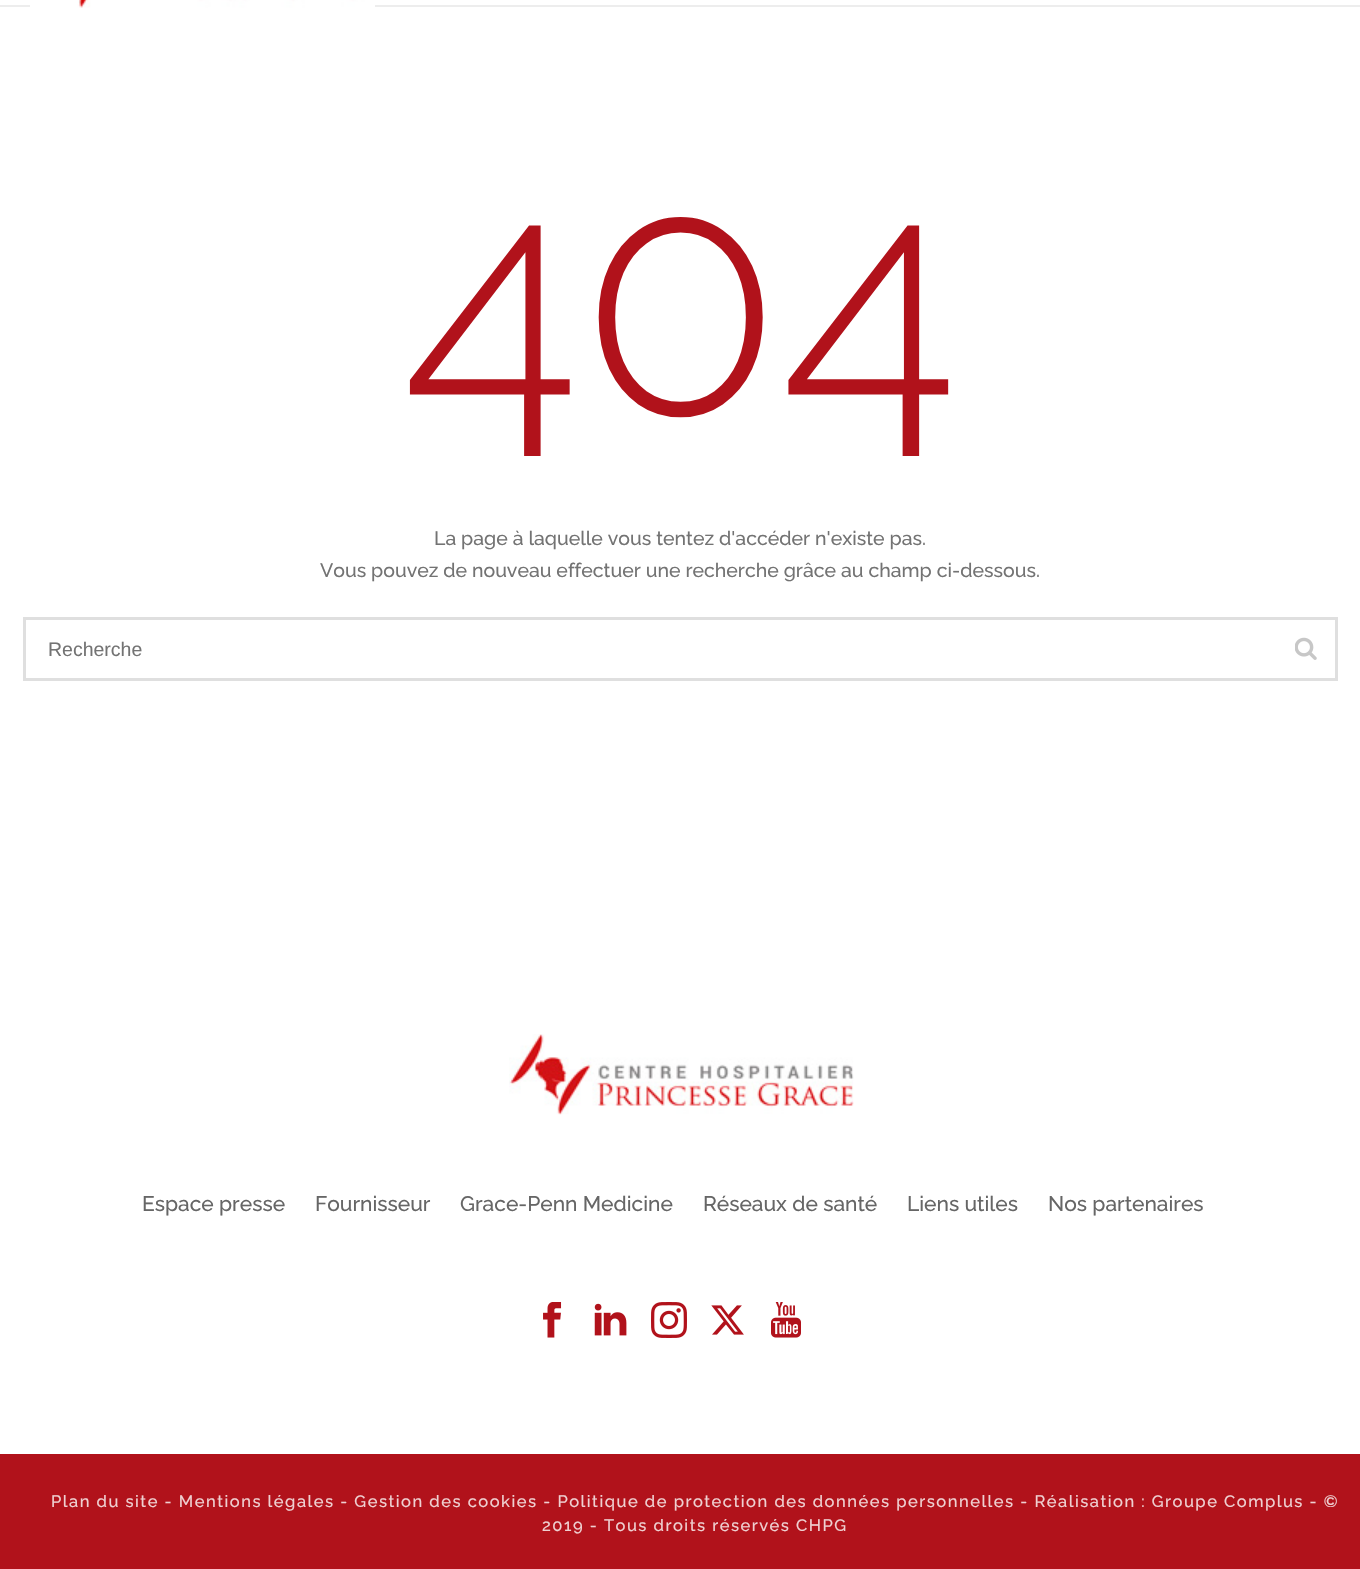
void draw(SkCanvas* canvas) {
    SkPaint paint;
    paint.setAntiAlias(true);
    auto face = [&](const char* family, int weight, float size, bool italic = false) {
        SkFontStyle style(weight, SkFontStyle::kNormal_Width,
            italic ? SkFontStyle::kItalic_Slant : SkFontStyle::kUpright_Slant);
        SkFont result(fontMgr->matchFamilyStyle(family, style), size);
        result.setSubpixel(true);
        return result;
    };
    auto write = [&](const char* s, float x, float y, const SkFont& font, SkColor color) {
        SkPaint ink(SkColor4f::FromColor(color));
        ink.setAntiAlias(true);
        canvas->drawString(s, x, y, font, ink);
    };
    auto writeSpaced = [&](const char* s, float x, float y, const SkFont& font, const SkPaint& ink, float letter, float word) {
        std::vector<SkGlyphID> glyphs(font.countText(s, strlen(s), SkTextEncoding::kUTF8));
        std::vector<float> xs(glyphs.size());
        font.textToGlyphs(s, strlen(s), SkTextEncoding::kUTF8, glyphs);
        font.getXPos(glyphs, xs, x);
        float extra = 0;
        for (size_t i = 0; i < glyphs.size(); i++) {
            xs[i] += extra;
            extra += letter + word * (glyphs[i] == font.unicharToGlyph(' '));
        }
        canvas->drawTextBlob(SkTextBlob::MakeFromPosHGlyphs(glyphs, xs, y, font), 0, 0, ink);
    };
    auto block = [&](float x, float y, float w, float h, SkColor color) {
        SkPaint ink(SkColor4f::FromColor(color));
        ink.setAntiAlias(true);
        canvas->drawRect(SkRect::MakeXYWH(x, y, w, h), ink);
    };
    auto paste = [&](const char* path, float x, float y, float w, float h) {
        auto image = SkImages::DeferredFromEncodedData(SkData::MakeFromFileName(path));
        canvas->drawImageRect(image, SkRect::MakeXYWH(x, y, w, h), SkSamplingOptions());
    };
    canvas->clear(SK_ColorWHITE);
    block(0, 5, 1360, 2, SkColorSetRGB(237, 237, 237));
    paste("pic1.png", 30, 0, 345, 8);
    auto kFont1 = face("Raleway", 300, 330);
    write("404", 403, 414, kFont1, SkColorSetRGB(177, 18, 27));
    auto kFont2 = face("Raleway", 500, 19.5f);
    write("La page à laquelle vous tentez d'accéder n'existe pas.", 434, 545, kFont2, SkColorSetRGB(115, 115, 115));
    write("Vous pouvez de nouveau effectuer une recherche grâce au champ ci-dessous.", 320, 577, kFont2, SkColorSetRGB(115, 115, 115));
    paint.setStyle(SkPaint::kStroke_Style);
    paint.setStrokeWidth(3);
    paint.setColor(SkColorSetRGB(223, 223, 223));
    canvas->drawRect(SkRect::MakeXYWH(24.5f, 618.5f, 1312, 61), paint);
    auto kFont3 = face("Liberation Sans", 400, 19.5f);
    write("Recherche", 48, 656, kFont3, SkColorSetRGB(115, 115, 115));
    paste("pic2.png", 1295, 637, 22, 23);
    paste("pic3.png", 509, 1034, 345, 81);
    auto kFont4 = face("Raleway", 500, 21);
    write("Espace presse", 142, 1211, kFont4, SkColorSetRGB(102, 102, 102));
    write("Fournisseur", 315, 1211, kFont4, SkColorSetRGB(102, 102, 102));
    write("Grace-Penn Medicine", 460, 1211, kFont4, SkColorSetRGB(102, 102, 102));
    write("Réseaux de santé", 703, 1211, kFont4, SkColorSetRGB(102, 102, 102));
    write("Liens utiles", 907, 1211, kFont4, SkColorSetRGB(102, 102, 102));
    write("Nos partenaires", 1048, 1211, kFont4, SkColorSetRGB(102, 102, 102));
    paste("pic4.png", 543, 1302, 19, 36);
    paste("pic5.png", 594, 1303, 33, 33);
    paste("pic6.png", 651, 1302, 36, 36);
    paste("pic7.png", 711, 1305, 33, 30);
    paste("pic8.png", 771, 1302, 30, 36);
    block(0, 1454, 1360, 115, SkColorSetRGB(177, 18, 27));
    auto kFont5 = face("Raleway", 500, 16.5f);
    paint.setStyle(SkPaint::kFill_Style);
    paint.setColor(SkColorSetRGB(239, 208, 209));
    writeSpaced("Plan du site - Mentions légales - Gestion des cookies - Politique de protection des données personnelles - Réalisation : Groupe Complus - ©", 51, 1507, kFont5, paint, 1.5f, 0);
    writeSpaced("2019 - Tous droits réservés CHPG", 542, 1531, kFont5, paint, 1.5f, 0);
}
